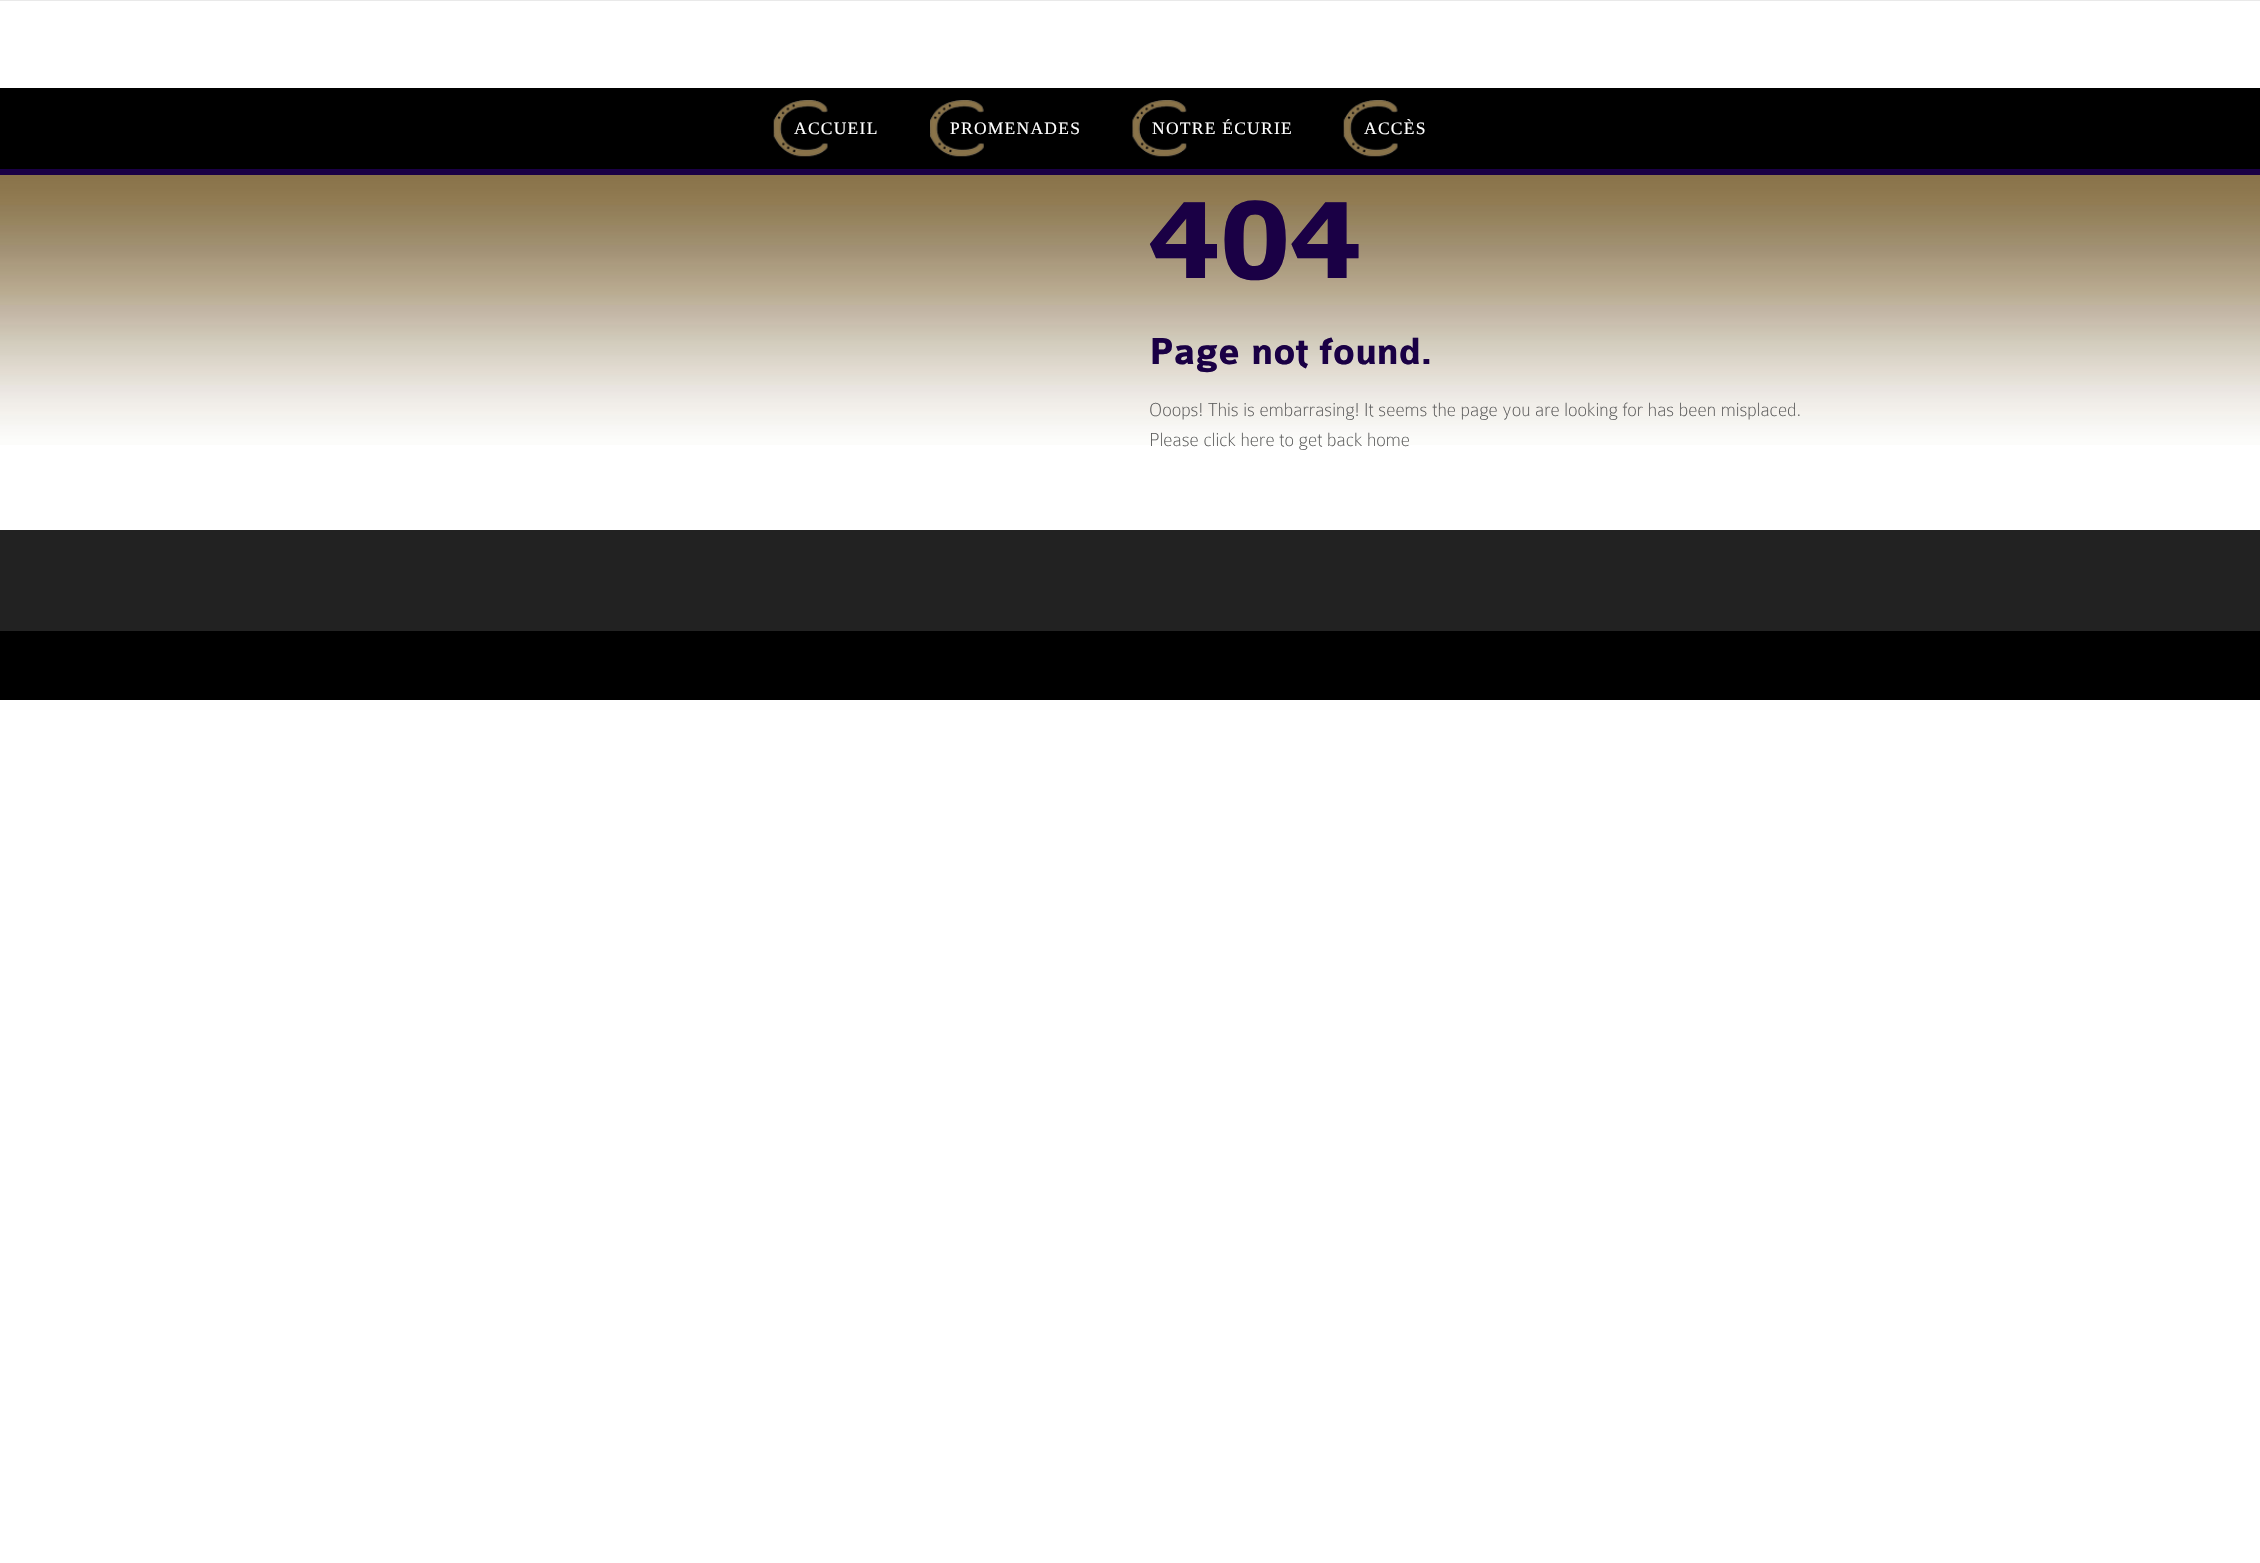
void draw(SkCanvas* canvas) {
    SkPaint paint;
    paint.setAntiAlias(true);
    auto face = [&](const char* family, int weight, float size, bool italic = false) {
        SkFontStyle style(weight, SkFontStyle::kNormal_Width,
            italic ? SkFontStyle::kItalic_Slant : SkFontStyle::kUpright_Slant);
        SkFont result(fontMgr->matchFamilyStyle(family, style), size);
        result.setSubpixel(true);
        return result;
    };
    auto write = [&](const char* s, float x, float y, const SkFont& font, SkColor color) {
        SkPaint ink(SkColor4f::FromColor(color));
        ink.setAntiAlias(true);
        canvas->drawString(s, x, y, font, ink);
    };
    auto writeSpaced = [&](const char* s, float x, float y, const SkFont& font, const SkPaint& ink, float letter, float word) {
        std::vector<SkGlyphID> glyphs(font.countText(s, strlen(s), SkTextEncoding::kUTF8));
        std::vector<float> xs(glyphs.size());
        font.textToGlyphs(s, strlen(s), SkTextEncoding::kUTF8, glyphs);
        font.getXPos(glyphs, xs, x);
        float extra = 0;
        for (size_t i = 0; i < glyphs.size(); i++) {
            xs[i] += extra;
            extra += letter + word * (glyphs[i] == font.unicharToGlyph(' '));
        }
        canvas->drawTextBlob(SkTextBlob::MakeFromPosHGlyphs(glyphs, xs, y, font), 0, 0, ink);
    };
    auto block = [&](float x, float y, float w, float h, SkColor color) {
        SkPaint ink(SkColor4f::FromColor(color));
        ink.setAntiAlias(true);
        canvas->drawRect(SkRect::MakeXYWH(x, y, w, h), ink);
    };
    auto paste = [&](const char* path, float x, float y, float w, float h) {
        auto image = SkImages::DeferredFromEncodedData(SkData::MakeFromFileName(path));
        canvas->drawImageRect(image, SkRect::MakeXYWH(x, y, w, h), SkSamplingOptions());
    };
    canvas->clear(SK_ColorWHITE);
    block(0, 0, 2260, 1, SkColorSetRGB(233, 233, 233));
    block(0, 88, 2260, 81, SK_ColorBLACK);
    block(0, 169, 2260, 6, SkColorSetRGB(26, 0, 69));
    paste("pic1.png", 773, 100, 55, 57);
    auto kFont1 = face("Liberation Serif", 400, 17.5f);
    paint.setColor(SK_ColorWHITE);
    writeSpaced("ACCUEIL", 794, 134, kFont1, paint, 1.25f, 0);
    paste("pic2.png", 930, 100, 54, 57);
    writeSpaced("PROMENADES", 950, 134, kFont1, paint, 1.25f, 0);
    paste("pic3.png", 1132, 100, 55, 57);
    writeSpaced("NOTRE ÉCURIE", 1152, 134, kFont1, paint, 1.25f, 0);
    paste("pic1.png", 1343, 100, 55, 57);
    writeSpaced("ACCÈS", 1364, 134, kFont1, paint, 1.25f, 0);
    paste("pic4.png", 0, 175, 2260, 270);
    auto kFont2 = face("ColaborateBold", 700, 125);
    write("404", 1149, 278, kFont2, SkColorSetRGB(26, 0, 69));
    auto kFont3 = face("ColaborateBold", 700, 40);
    write("Page not found.", 1149, 364, kFont3, SkColorSetRGB(26, 0, 69));
    auto kFont4 = face("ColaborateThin", 100, 20);
    write("Ooops! This is embarrasing! It seems the page you are looking for has been misplaced.", 1149, 416, kFont4, SkColorSetRGB(93, 93, 93));
    write("Please click here to get back home", 1149, 446, kFont4, SkColorSetRGB(93, 93, 93));
    block(0, 530, 2260, 101, SkColorSetRGB(34, 34, 34));
    block(0, 631, 2260, 69, SK_ColorBLACK);
}
